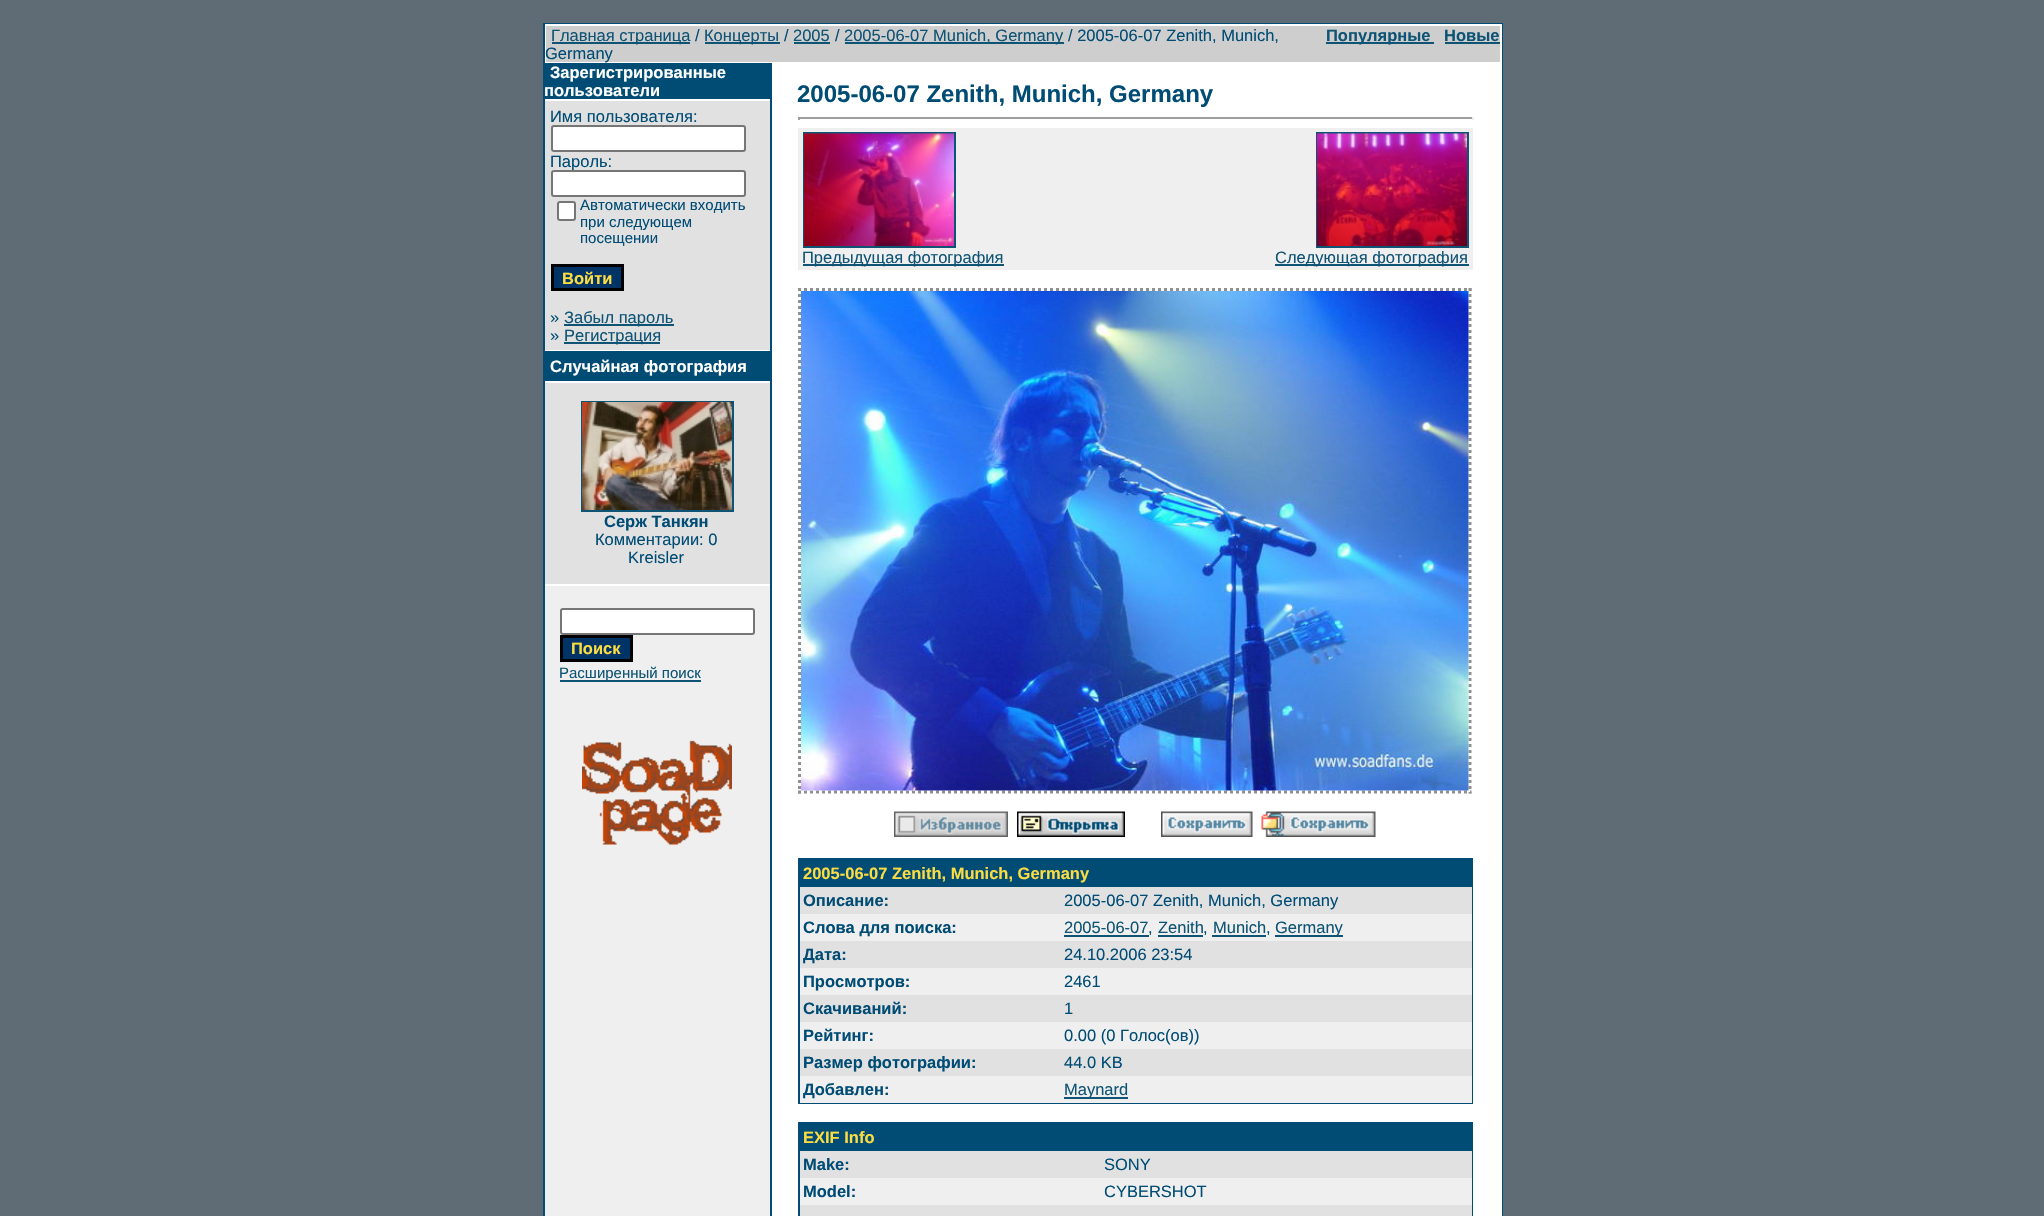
void draw(SkCanvas* canvas) {
    SkPaint paint;
    paint.setAntiAlias(true);
    auto face = [&](const char* family, int weight, float size, bool italic = false) {
        SkFontStyle style(weight, SkFontStyle::kNormal_Width,
            italic ? SkFontStyle::kItalic_Slant : SkFontStyle::kUpright_Slant);
        SkFont result(fontMgr->matchFamilyStyle(family, style), size);
        result.setSubpixel(true);
        return result;
    };
    auto write = [&](const char* s, float x, float y, const SkFont& font, SkColor color) {
        SkPaint ink(SkColor4f::FromColor(color));
        ink.setAntiAlias(true);
        canvas->drawString(s, x, y, font, ink);
    };
    auto block = [&](float x, float y, float w, float h, SkColor color) {
        SkPaint ink(SkColor4f::FromColor(color));
        ink.setAntiAlias(true);
        canvas->drawRect(SkRect::MakeXYWH(x, y, w, h), ink);
    };
    auto paste = [&](const char* path, float x, float y, float w, float h) {
        auto image = SkImages::DeferredFromEncodedData(SkData::MakeFromFileName(path));
        canvas->drawImageRect(image, SkRect::MakeXYWH(x, y, w, h), SkSamplingOptions());
    };
    canvas->clear(SkColorSetRGB(95, 108, 118));
    block(543, 23, 960, 1193, SkColorSetRGB(0, 76, 117));
    block(545, 24, 957, 1192, SK_ColorWHITE);
    block(546, 26, 954, 36, SkColorSetRGB(206, 206, 206));
    block(552, 42, 138, 2, SkColorSetRGB(15, 84, 117));
    auto kFont1 = face("Liberation Sans", 400, 16.5f);
    write("Главная страница", 551, 41, kFont1, SkColorSetRGB(15, 84, 117));
    write("/", 695, 41, kFont1, SkColorSetRGB(0, 76, 117));
    block(705, 42, 75, 2, SkColorSetRGB(15, 84, 117));
    write("Концерты", 704, 41, kFont1, SkColorSetRGB(15, 84, 117));
    write("/", 784, 41, kFont1, SkColorSetRGB(0, 76, 117));
    write("2005", 793, 41, kFont1, SkColorSetRGB(15, 84, 117));
    block(794, 42, 36, 2, SkColorSetRGB(15, 84, 117));
    write("/", 835, 41, kFont1, SkColorSetRGB(0, 76, 117));
    block(845, 42, 219, 2, SkColorSetRGB(15, 84, 117));
    write("2005-06-07 Munich, Germany", 844, 41, kFont1, SkColorSetRGB(15, 84, 117));
    write("/ 2005-06-07 Zenith, Munich,", 1068, 41, kFont1, SkColorSetRGB(0, 76, 117));
    write("Germany", 545, 59, kFont1, SkColorSetRGB(0, 76, 117));
    block(1326, 42, 108, 2, SkColorSetRGB(15, 84, 117));
    auto kFont2 = face("Liberation Sans", 700, 16.5f);
    write("Популярные", 1326, 41, kFont2, SkColorSetRGB(15, 84, 117));
    write("Новые", 1444, 41, kFont2, SkColorSetRGB(15, 84, 117));
    block(1445, 42, 55, 2, SkColorSetRGB(15, 84, 117));
    block(545, 586, 225, 630, SkColorSetRGB(239, 239, 239));
    block(545, 63, 225, 36, SkColorSetRGB(0, 76, 117));
    write("Зарегистрированные", 550, 78, kFont2, SK_ColorWHITE);
    write("пользователи", 544, 96, kFont2, SK_ColorWHITE);
    block(545, 101, 225, 249, SkColorSetRGB(225, 225, 225));
    write("Имя пользователя:", 550, 122, kFont1, SkColorSetRGB(0, 76, 117));
    paint.setColor(SK_ColorWHITE);
    canvas->drawRoundRect(SkRect::MakeXYWH(552, 126, 193, 25), 2, 2, paint);
    paint.setStyle(SkPaint::kStroke_Style);
    paint.setStrokeWidth(2);
    paint.setColor(SkColorSetRGB(118, 118, 118));
    canvas->drawRoundRect(SkRect::MakeXYWH(552, 126, 193, 25), 2, 2, paint);
    write("Пароль:", 550, 167, kFont1, SkColorSetRGB(0, 76, 117));
    paint.setStyle(SkPaint::kFill_Style);
    paint.setColor(SK_ColorWHITE);
    canvas->drawRoundRect(SkRect::MakeXYWH(552, 171, 193, 25), 2, 2, paint);
    paint.setStyle(SkPaint::kStroke_Style);
    paint.setColor(SkColorSetRGB(118, 118, 118));
    canvas->drawRoundRect(SkRect::MakeXYWH(552, 171, 193, 25), 2, 2, paint);
    paint.setStyle(SkPaint::kFill_Style);
    paint.setColor(SK_ColorWHITE);
    canvas->drawRoundRect(SkRect::MakeXYWH(558, 202, 17, 18), 2, 2, paint);
    paint.setStyle(SkPaint::kStroke_Style);
    paint.setColor(SkColorSetRGB(118, 118, 118));
    canvas->drawRoundRect(SkRect::MakeXYWH(558, 202, 17, 18), 2, 2, paint);
    auto kFont3 = face("Liberation Sans", 400, 15);
    write("Автоматически входить", 580, 210, kFont3, SkColorSetRGB(0, 76, 117));
    write("при следующем", 580, 227, kFont3, SkColorSetRGB(0, 76, 117));
    write("посещении", 580, 243, kFont3, SkColorSetRGB(0, 76, 117));
    paint.setStyle(SkPaint::kFill_Style);
    paint.setColor(SkColorSetRGB(0, 51, 102));
    canvas->drawRect(SkRect::MakeXYWH(552.5f, 265.5f, 70, 24), paint);
    paint.setStyle(SkPaint::kStroke_Style);
    paint.setStrokeWidth(3);
    paint.setColor(SK_ColorBLACK);
    canvas->drawRect(SkRect::MakeXYWH(552.5f, 265.5f, 70, 24), paint);
    write("Войти", 562, 284, kFont2, SkColorSetRGB(252, 220, 67));
    write("»", 550, 323, kFont1, SkColorSetRGB(0, 76, 117));
    block(564, 324, 110, 2, SkColorSetRGB(15, 84, 117));
    write("Забыл пароль", 564, 323, kFont1, SkColorSetRGB(15, 84, 117));
    write("»", 550, 341, kFont1, SkColorSetRGB(0, 76, 117));
    block(564, 342, 96, 2, SkColorSetRGB(15, 84, 117));
    write("Регистрация", 564, 341, kFont1, SkColorSetRGB(15, 84, 117));
    block(545, 351, 225, 30, SkColorSetRGB(0, 76, 117));
    write("Случайная фотография", 550, 372, kFont2, SK_ColorWHITE);
    block(545, 383, 225, 201, SkColorSetRGB(225, 225, 225));
    paint.setStrokeWidth(2);
    paint.setColor(SkColorSetRGB(15, 84, 117));
    canvas->drawRect(SkRect::MakeXYWH(582, 402, 151, 109), paint);
    paste("pic1.png", 582, 402, 150, 108);
    write("Серж Танкян", 604, 527, kFont2, SkColorSetRGB(0, 76, 117));
    write("Комментарии: 0", 595, 545, kFont1, SkColorSetRGB(0, 76, 117));
    write("Kreisler", 628, 563, kFont1, SkColorSetRGB(0, 76, 117));
    paint.setStyle(SkPaint::kFill_Style);
    paint.setColor(SK_ColorWHITE);
    canvas->drawRoundRect(SkRect::MakeXYWH(561, 609, 193, 25), 2, 2, paint);
    paint.setStyle(SkPaint::kStroke_Style);
    paint.setColor(SkColorSetRGB(118, 118, 118));
    canvas->drawRoundRect(SkRect::MakeXYWH(561, 609, 193, 25), 2, 2, paint);
    paint.setStyle(SkPaint::kFill_Style);
    paint.setColor(SkColorSetRGB(0, 51, 102));
    canvas->drawRect(SkRect::MakeXYWH(561.5f, 636.5f, 70, 24), paint);
    paint.setStyle(SkPaint::kStroke_Style);
    paint.setStrokeWidth(3);
    paint.setColor(SK_ColorBLACK);
    canvas->drawRect(SkRect::MakeXYWH(561.5f, 636.5f, 70, 24), paint);
    write("Поиск", 571, 654, kFont2, SkColorSetRGB(252, 220, 67));
    block(560, 680, 141, 2, SkColorSetRGB(15, 84, 117));
    write("Расширенный поиск", 559, 678, kFont3, SkColorSetRGB(15, 84, 117));
    paste("pic2.png", 582, 740, 150, 105);
    block(770, 63, 2, 1153, SkColorSetRGB(0, 76, 117));
    auto kFont4 = face("Liberation Sans", 700, 24);
    write("2005-06-07 Zenith, Munich, Germany", 797, 102, kFont4, SkColorSetRGB(0, 76, 117));
    block(798, 117, 675, 2, SkColorSetRGB(159, 159, 159));
    block(1472, 117, 2, 3, SkColorSetRGB(238, 238, 238));
    block(798, 117, 2, 3, SkColorSetRGB(159, 159, 159));
    block(798, 128, 675, 142, SkColorSetRGB(239, 239, 239));
    paint.setStrokeWidth(2);
    paint.setColor(SkColorSetRGB(15, 84, 117));
    canvas->drawRect(SkRect::MakeXYWH(804, 133, 151, 114), paint);
    paste("pic3.png", 804, 133, 150, 113);
    block(803, 264, 201, 2, SkColorSetRGB(15, 84, 117));
    write("Предыдущая фотография", 802, 263, kFont1, SkColorSetRGB(15, 84, 117));
    canvas->drawRect(SkRect::MakeXYWH(1317, 133, 151, 114), paint);
    paste("pic4.png", 1317, 133, 150, 113);
    block(1275, 264, 194, 2, SkColorSetRGB(15, 84, 117));
    write("Следующая фотография", 1275, 263, kFont1, SkColorSetRGB(15, 84, 117));
    paint.setStrokeWidth(3);
    paint.setColor(SkColorSetRGB(144, 144, 144));
    paint.setPathEffect(SkDashPathEffect::Make({{3, 3}}, 0));
    canvas->drawPath(SkPathBuilder().moveTo(798, 289.5f).lineTo(1471.5f, 289.5f).detach(), paint);
    paint.setPathEffect(nullptr);
    paint.setPathEffect(SkDashPathEffect::Make({{3, 3}}, 0));
    canvas->drawPath(SkPathBuilder().moveTo(1470, 288).lineTo(1470, 793.5f).detach(), paint);
    paint.setPathEffect(nullptr);
    paint.setPathEffect(SkDashPathEffect::Make({{3, 3}}, 0));
    canvas->drawPath(SkPathBuilder().moveTo(798, 792).lineTo(1471.5f, 792).detach(), paint);
    paint.setPathEffect(nullptr);
    paint.setPathEffect(SkDashPathEffect::Make({{3, 3}}, 0));
    canvas->drawPath(SkPathBuilder().moveTo(799.5f, 288).lineTo(799.5f, 793.5f).detach(), paint);
    paint.setPathEffect(nullptr);
    paste("pic5.png", 801, 291, 668, 500);
    paste("pic6.png", 894, 811, 114, 26);
    paste("pic7.png", 1017, 811, 108, 26);
    paste("pic8.png", 1161, 811, 92, 26);
    paste("pic9.png", 1261, 811, 115, 26);
    block(798, 858, 675, 246, SkColorSetRGB(0, 76, 117));
    write("2005-06-07 Zenith, Munich, Germany", 803, 879, kFont2, SkColorSetRGB(252, 220, 67));
    block(800, 887, 672, 27, SkColorSetRGB(225, 225, 225));
    write("Описание:", 803, 906, kFont2, SkColorSetRGB(0, 76, 117));
    write("2005-06-07 Zenith, Munich, Germany", 1064, 906, kFont1, SkColorSetRGB(0, 76, 117));
    block(800, 914, 672, 27, SkColorSetRGB(239, 239, 239));
    write("Слова для поиска:", 803, 933, kFont2, SkColorSetRGB(0, 76, 117));
    write("2005-06-07", 1064, 933, kFont1, SkColorSetRGB(15, 84, 117));
    block(1064, 935, 85, 2, SkColorSetRGB(15, 84, 117));
    write(",", 1148, 933, kFont1, SkColorSetRGB(0, 76, 117));
    write("Zenith", 1158, 933, kFont1, SkColorSetRGB(15, 84, 117));
    block(1158, 935, 45, 2, SkColorSetRGB(15, 84, 117));
    write(",", 1203, 933, kFont1, SkColorSetRGB(0, 76, 117));
    write("Munich", 1213, 933, kFont1, SkColorSetRGB(15, 84, 117));
    block(1212, 935, 54, 2, SkColorSetRGB(15, 84, 117));
    write(",", 1266, 933, kFont1, SkColorSetRGB(0, 76, 117));
    block(1275, 935, 68, 2, SkColorSetRGB(15, 84, 117));
    write("Germany", 1275, 933, kFont1, SkColorSetRGB(15, 84, 117));
    block(800, 941, 672, 27, SkColorSetRGB(225, 225, 225));
    write("Дата:", 803, 960, kFont2, SkColorSetRGB(0, 76, 117));
    write("24.10.2006 23:54", 1064, 960, kFont1, SkColorSetRGB(0, 76, 117));
    block(800, 968, 672, 27, SkColorSetRGB(239, 239, 239));
    write("Просмотров:", 803, 987, kFont2, SkColorSetRGB(0, 76, 117));
    write("2461", 1064, 987, kFont1, SkColorSetRGB(0, 76, 117));
    block(800, 995, 672, 27, SkColorSetRGB(225, 225, 225));
    write("Скачиваний:", 803, 1014, kFont2, SkColorSetRGB(0, 76, 117));
    write("1", 1064, 1014, kFont1, SkColorSetRGB(0, 76, 117));
    block(800, 1022, 672, 27, SkColorSetRGB(239, 239, 239));
    write("Рейтинг:", 803, 1041, kFont2, SkColorSetRGB(0, 76, 117));
    write("0.00 (0 Голос(ов))", 1064, 1041, kFont1, SkColorSetRGB(0, 76, 117));
    block(800, 1049, 672, 27, SkColorSetRGB(225, 225, 225));
    write("Размер фотографии:", 803, 1068, kFont2, SkColorSetRGB(0, 76, 117));
    write("44.0 KB", 1064, 1068, kFont1, SkColorSetRGB(0, 76, 117));
    block(800, 1076, 672, 27, SkColorSetRGB(239, 239, 239));
    write("Добавлен:", 803, 1095, kFont2, SkColorSetRGB(0, 76, 117));
    block(1064, 1097, 64, 2, SkColorSetRGB(15, 84, 117));
    write("Maynard", 1064, 1095, kFont1, SkColorSetRGB(15, 84, 117));
    block(798, 1122, 675, 94, SkColorSetRGB(0, 76, 117));
    write("EXIF Info", 803, 1143, kFont2, SkColorSetRGB(252, 220, 67));
    block(800, 1151, 672, 27, SkColorSetRGB(225, 225, 225));
    write("Make:", 803, 1170, kFont2, SkColorSetRGB(0, 76, 117));
    write("SONY", 1104, 1170, kFont1, SkColorSetRGB(0, 76, 117));
    block(800, 1178, 672, 27, SkColorSetRGB(239, 239, 239));
    write("Model:", 803, 1197, kFont2, SkColorSetRGB(0, 76, 117));
    write("CYBERSHOT", 1104, 1197, kFont1, SkColorSetRGB(0, 76, 117));
    block(800, 1205, 672, 11, SkColorSetRGB(225, 225, 225));
}
